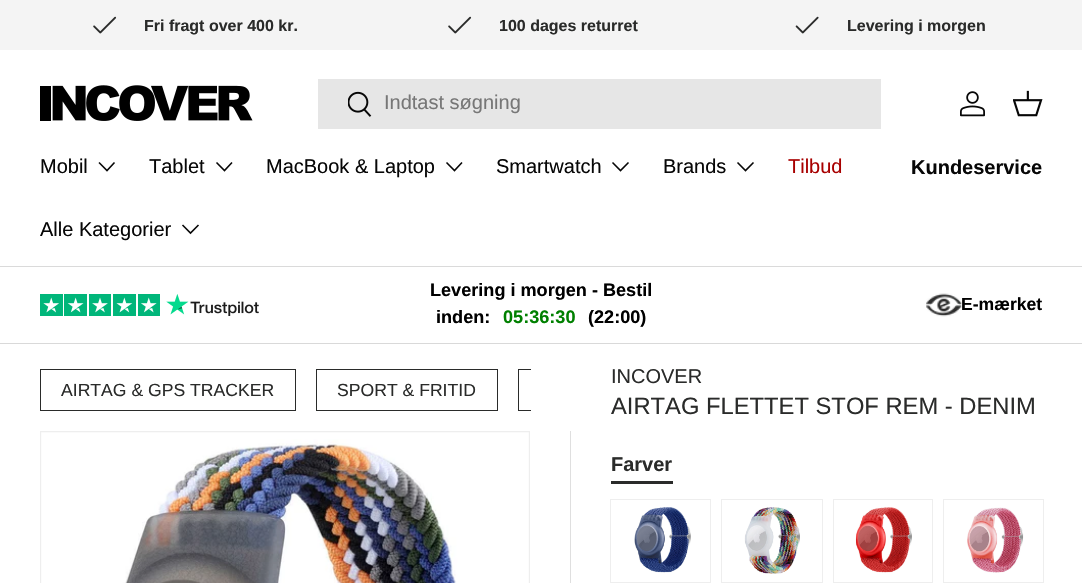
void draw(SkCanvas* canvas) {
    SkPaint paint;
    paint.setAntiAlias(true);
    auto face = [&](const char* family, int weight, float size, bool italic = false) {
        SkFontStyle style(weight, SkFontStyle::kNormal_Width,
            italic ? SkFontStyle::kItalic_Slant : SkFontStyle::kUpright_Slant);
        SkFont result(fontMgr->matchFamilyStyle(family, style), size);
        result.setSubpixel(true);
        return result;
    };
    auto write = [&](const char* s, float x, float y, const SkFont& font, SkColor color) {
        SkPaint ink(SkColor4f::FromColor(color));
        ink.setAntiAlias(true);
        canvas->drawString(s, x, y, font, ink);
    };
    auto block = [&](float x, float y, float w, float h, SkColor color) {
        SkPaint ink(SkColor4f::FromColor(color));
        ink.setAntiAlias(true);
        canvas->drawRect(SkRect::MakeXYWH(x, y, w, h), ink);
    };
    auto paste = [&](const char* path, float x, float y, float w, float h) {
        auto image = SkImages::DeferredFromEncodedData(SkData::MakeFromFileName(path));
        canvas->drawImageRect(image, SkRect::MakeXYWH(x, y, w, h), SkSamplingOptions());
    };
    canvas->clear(SK_ColorWHITE);
    block(0, 0, 1082, 50, SkColorSetRGB(244, 244, 244));
    paste("pic1.png", 93, 16, 24, 18);
    auto kFont1 = face("Liberation Sans", 700, 16);
    write("Fri fragt over 400 kr.", 144, 31, kFont1, SkColorSetRGB(42, 43, 42));
    paste("pic1.png", 448, 16, 24, 18);
    write("100 dages returret", 499, 31, kFont1, SkColorSetRGB(42, 43, 42));
    paste("pic2.png", 795, 16, 24, 18);
    write("Levering i morgen", 847, 31, kFont1, SkColorSetRGB(42, 43, 42));
    block(0, 266, 1082, 1, SkColorSetRGB(218, 218, 218));
    paste("pic3.png", 40, 85, 213, 36);
    block(318, 79, 563, 50, SkColorSetRGB(230, 230, 230));
    paste("pic4.png", 348, 91, 24, 26);
    auto kFont2 = face("Liberation Sans", 400, 20);
    write("Indtast søgning", 384, 109, kFont2, SkColorSetRGB(119, 119, 119));
    paste("pic5.png", 960, 91, 25, 26);
    paste("pic6.png", 1013, 90, 30, 27);
    write("Mobil", 40, 173, kFont2, SkColorSetRGB(7, 7, 7));
    paint.setStyle(SkPaint::kStroke_Style);
    paint.setStrokeWidth(1.6f);
    paint.setColor(SkColorSetRGB(7, 7, 7));
    canvas->drawPath(SkPathBuilder().moveTo(114.5f, 162.5f).lineTo(107, 170.5f).lineTo(99, 162.5f).detach(), paint);
    write("Tablet", 149, 173, kFont2, SkColorSetRGB(7, 7, 7));
    canvas->drawPath(SkPathBuilder().moveTo(232, 162.5f).lineTo(224.5f, 170.5f).lineTo(216.5f, 162.5f).detach(), paint);
    write("MacBook & Laptop", 266, 173, kFont2, SkColorSetRGB(7, 7, 7));
    canvas->drawPath(SkPathBuilder().moveTo(462, 162.5f).lineTo(454.5f, 170.5f).lineTo(446.5f, 162.5f).detach(), paint);
    write("Smartwatch", 496, 173, kFont2, SkColorSetRGB(7, 7, 7));
    canvas->drawPath(SkPathBuilder().moveTo(628.5f, 162.5f).lineTo(620.5f, 170.5f).lineTo(612.5f, 162.5f).detach(), paint);
    write("Brands", 663, 173, kFont2, SkColorSetRGB(7, 7, 7));
    canvas->drawPath(SkPathBuilder().moveTo(753.5f, 162.5f).lineTo(745.5f, 170.5f).lineTo(737.5f, 162.5f).detach(), paint);
    write("Tilbud", 788, 173, kFont2, SkColorSetRGB(168, 0, 0));
    write("Alle Kategorier", 40, 236, kFont2, SkColorSetRGB(7, 7, 7));
    canvas->drawPath(SkPathBuilder().moveTo(198.5f, 225).lineTo(190.5f, 233).lineTo(182.5f, 225).detach(), paint);
    auto kFont3 = face("Liberation Sans", 700, 20);
    write("Kundeservice", 911, 174, kFont3, SkColorSetRGB(7, 7, 7));
    block(0, 343, 1082, 1, SkColorSetRGB(217, 217, 217));
    paste("pic7.png", 40, 294, 120, 22);
    paste("pic8.png", 166, 294, 93, 22);
    auto kFont4 = face("Liberation Sans", 700, 18.1f);
    write("Levering i morgen - Bestil", 430, 296, kFont4, SK_ColorBLACK);
    write("inden:", 436, 323, kFont4, SK_ColorBLACK);
    write("05:36:30", 503, 323, kFont4, SkColorSetRGB(0, 128, 0));
    write("(22:00)", 588, 323, kFont4, SK_ColorBLACK);
    paste("pic9.png", 926, 293, 36, 24);
    auto kFont5 = face("Liberation Sans", 700, 17.6f);
    write("E-mærket", 961, 310, kFont5, SK_ColorBLACK);
    paint.setStrokeWidth(1);
    paint.setColor(SkColorSetRGB(42, 43, 42));
    canvas->drawRect(SkRect::MakeXYWH(40.5f, 369.5f, 255, 41), paint);
    auto kFont6 = face("Liberation Sans", 400, 17.6f);
    write("AIRTAG & GPS TRACKER", 61, 396, kFont6, SkColorSetRGB(42, 43, 42));
    canvas->drawRect(SkRect::MakeXYWH(316.5f, 369.5f, 181, 41), paint);
    write("SPORT & FRITID", 337, 396, kFont6, SkColorSetRGB(42, 43, 42));
    canvas->save();
    canvas->clipRect(SkRect::MakeXYWH(40, 369, 491, 52));
    canvas->drawRect(SkRect::MakeXYWH(518.5f, 369.5f, 121, 41), paint);
    canvas->restore();
    write("INCOVER", 611, 383, kFont2, SkColorSetRGB(42, 43, 42));
    auto kFont7 = face("Liberation Sans", 400, 23.75f);
    write("AIRTAG FLETTET STOF REM - DENIM", 611, 414, kFont7, SkColorSetRGB(42, 43, 42));
    write("Farver", 611, 471, kFont3, SkColorSetRGB(42, 43, 42));
    block(611, 481, 62, 3, SkColorSetRGB(42, 43, 42));
    paste("pic10.png", 634, 507, 57, 66);
    paint.setColor(SkColorSetRGB(238, 238, 238));
    canvas->drawRect(SkRect::MakeXYWH(610.5f, 499.5f, 100, 83), paint);
    paste("pic11.png", 744, 507, 56, 67);
    canvas->drawRect(SkRect::MakeXYWH(721.5f, 499.5f, 101, 83), paint);
    paste("pic12.png", 855, 507, 57, 66);
    canvas->drawRect(SkRect::MakeXYWH(833.5f, 499.5f, 99, 83), paint);
    paste("pic13.png", 967, 507, 57, 66);
    canvas->drawRect(SkRect::MakeXYWH(943.5f, 499.5f, 100, 83), paint);
    block(570, 431, 1, 152, SkColorSetRGB(223, 223, 223));
    paint.setStyle(SkPaint::kFill_Style);
    paint.setColor(SkColorSetRGB(244, 244, 244));
    canvas->drawRect(SkRect::MakeXYWH(40.5f, 431.5f, 489, 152), paint);
    paint.setStyle(SkPaint::kStroke_Style);
    paint.setColor(SkColorSetRGB(238, 238, 238));
    canvas->drawRect(SkRect::MakeXYWH(40.5f, 431.5f, 489, 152), paint);
    paste("pic14.png", 41, 432, 488, 151);
}
